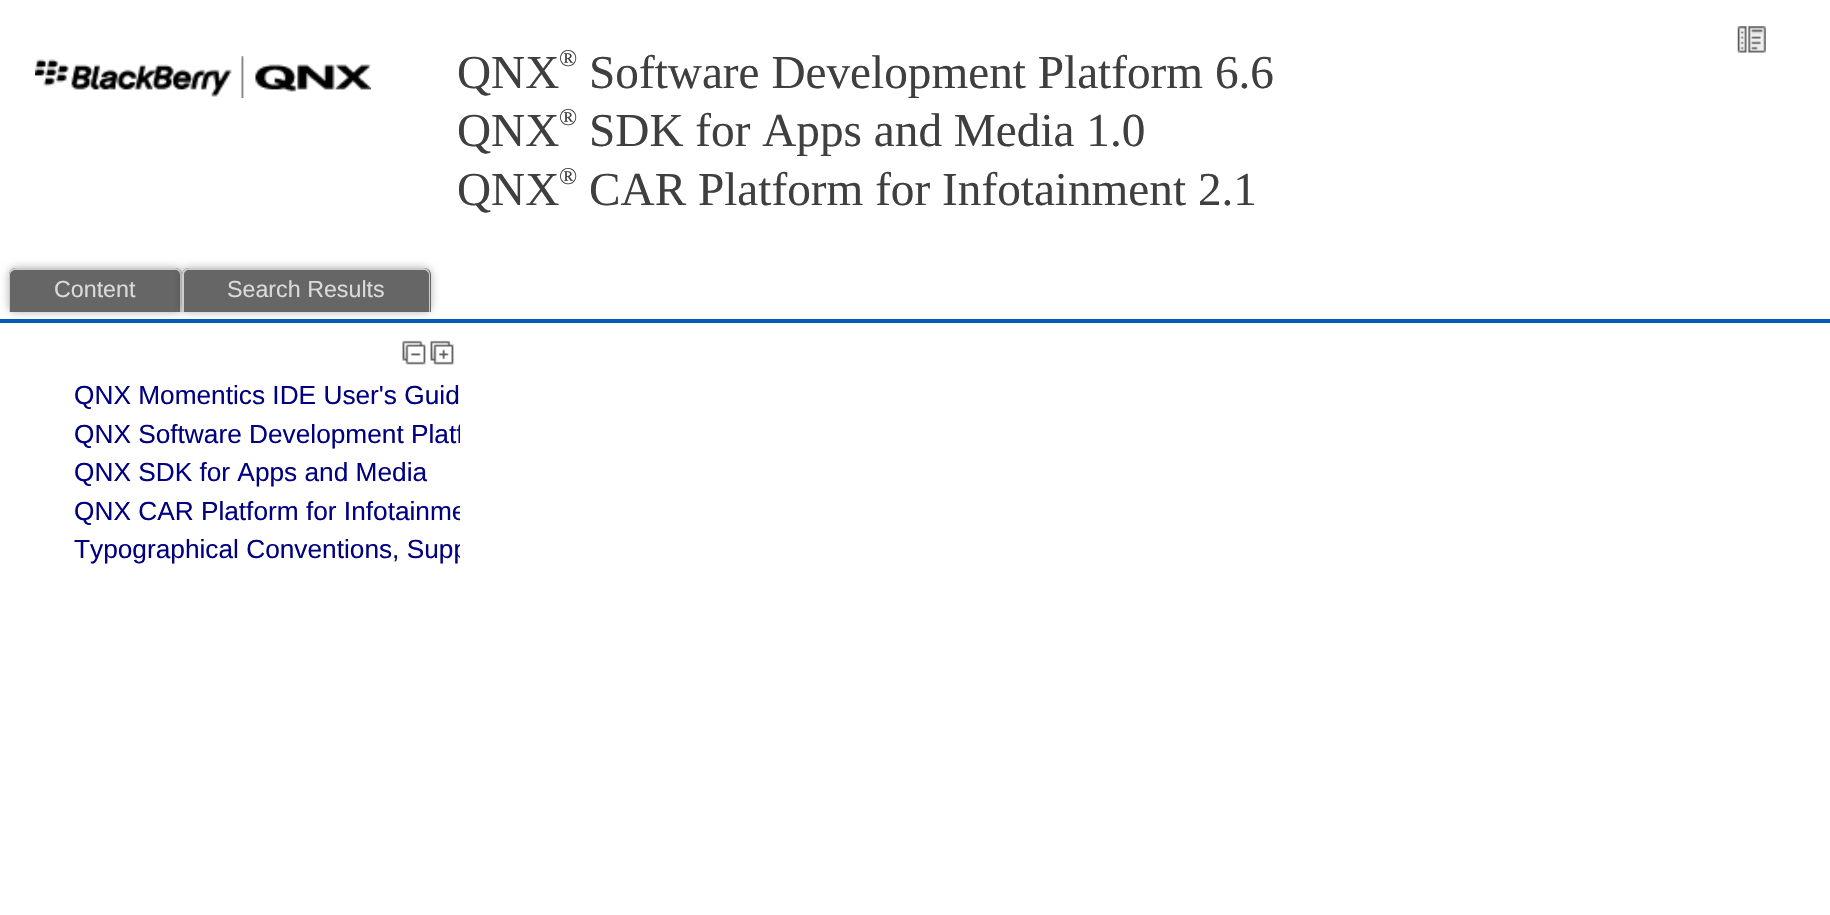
void draw(SkCanvas* canvas) {
    SkPaint paint;
    paint.setAntiAlias(true);
    auto face = [&](const char* family, int weight, float size, bool italic = false) {
        SkFontStyle style(weight, SkFontStyle::kNormal_Width,
            italic ? SkFontStyle::kItalic_Slant : SkFontStyle::kUpright_Slant);
        SkFont result(fontMgr->matchFamilyStyle(family, style), size);
        result.setSubpixel(true);
        return result;
    };
    auto write = [&](const char* s, float x, float y, const SkFont& font, SkColor color) {
        SkPaint ink(SkColor4f::FromColor(color));
        ink.setAntiAlias(true);
        canvas->drawString(s, x, y, font, ink);
    };
    auto block = [&](float x, float y, float w, float h, SkColor color) {
        SkPaint ink(SkColor4f::FromColor(color));
        ink.setAntiAlias(true);
        canvas->drawRect(SkRect::MakeXYWH(x, y, w, h), ink);
    };
    auto paste = [&](const char* path, float x, float y, float w, float h) {
        auto image = SkImages::DeferredFromEncodedData(SkData::MakeFromFileName(path));
        canvas->drawImageRect(image, SkRect::MakeXYWH(x, y, w, h), SkSamplingOptions());
    };
    canvas->clear(SK_ColorWHITE);
    paste("pic1.png", 1737, 26, 29, 27);
    paste("pic2.png", 35, 56, 336, 42);
    auto kFont1 = face("Liberation Serif", 400, 47.25f);
    write("QNX", 457, 88, kFont1, SkColorSetRGB(63, 63, 63));
    auto kFont2 = face("Liberation Serif", 400, 24);
    write("®", 559, 66, kFont2, SkColorSetRGB(63, 63, 63));
    write("Software Development Platform 6.6", 589, 88, kFont1, SkColorSetRGB(63, 63, 63));
    write("QNX", 457, 146, kFont1, SkColorSetRGB(63, 63, 63));
    write("®", 559, 125, kFont2, SkColorSetRGB(63, 63, 63));
    write("SDK for Apps and Media 1.0", 589, 146, kFont1, SkColorSetRGB(63, 63, 63));
    write("QNX", 457, 205, kFont1, SkColorSetRGB(63, 63, 63));
    write("®", 559, 184, kFont2, SkColorSetRGB(63, 63, 63));
    write("CAR Platform for Infotainment 2.1", 589, 205, kFont1, SkColorSetRGB(63, 63, 63));
    block(0, 319, 1830, 4, SkColorSetRGB(0, 92, 179));
    paint.setColor(SkColorSetARGB(79, 0, 0, 0));
    paint.setMaskFilter(SkMaskFilter::MakeBlur(kNormal_SkBlurStyle, 4.5f));
    canvas->drawRoundRect(SkRect::MakeXYWH(9, 268, 173, 44), 7, 7, paint);
    paint.setMaskFilter(nullptr);
    paint.setColor(SkColorSetRGB(102, 102, 102));
    canvas->drawPath(SkPathBuilder().moveTo(16, 268).lineTo(175, 268).cubicTo(179, 268, 182, 271, 182, 275).lineTo(182, 312).lineTo(9, 312).lineTo(9, 275).cubicTo(9, 271, 12, 268, 16, 268).close().detach(), paint);
    paint.setColor(SkColorSetRGB(204, 204, 204));
    canvas->drawPath(SkPathBuilder(SkPathFillType::kEvenOdd).moveTo(16, 268).lineTo(175, 268).cubicTo(179, 268, 182, 271, 182, 275).lineTo(182, 312).lineTo(9, 312).lineTo(9, 275).cubicTo(9, 271, 12, 268, 16, 268).close().moveTo(16, 270).lineTo(175, 270).cubicTo(178, 270, 180, 272, 180, 275).lineTo(180, 312).lineTo(10, 312).lineTo(10, 275).cubicTo(10, 272, 13, 270, 16, 270).close().detach(), paint);
    auto kFont3 = face("Liberation Sans", 400, 23.25f);
    write("Content", 54, 297, kFont3, SkColorSetRGB(218, 218, 218));
    paint.setColor(SkColorSetARGB(79, 0, 0, 0));
    paint.setMaskFilter(SkMaskFilter::MakeBlur(kNormal_SkBlurStyle, 4.5f));
    canvas->drawRoundRect(SkRect::MakeXYWH(182, 268, 249, 44), 7, 7, paint);
    paint.setMaskFilter(nullptr);
    paint.setColor(SkColorSetRGB(102, 102, 102));
    canvas->drawPath(SkPathBuilder().moveTo(189, 268).lineTo(424, 268).cubicTo(428, 268, 431, 271, 431, 275).lineTo(431, 312).lineTo(182, 312).lineTo(182, 275).cubicTo(182, 271, 185, 268, 189, 268).close().detach(), paint);
    paint.setColor(SkColorSetRGB(204, 204, 204));
    canvas->drawPath(SkPathBuilder(SkPathFillType::kEvenOdd).moveTo(189, 268).lineTo(424, 268).cubicTo(427, 268, 430, 271, 430, 275).lineTo(430, 312).lineTo(182, 312).lineTo(182, 275).cubicTo(182, 271, 185, 268, 189, 268).close().moveTo(189, 270).lineTo(424, 270).cubicTo(426, 270, 429, 272, 429, 275).lineTo(429, 312).lineTo(184, 312).lineTo(184, 275).cubicTo(184, 272, 186, 270, 189, 270).close().detach(), paint);
    write("Search Results", 227, 297, kFont3, SkColorSetRGB(218, 218, 218));
    paste("pic3.png", 402, 340, 24, 25);
    paste("pic4.png", 430, 340, 24, 25);
    auto kFont4 = face("Liberation Sans", 400, 26.25f);
    write("QNX Momentics IDE User's Guid", 74, 404, kFont4, SkColorSetRGB(0, 0, 128));
    canvas->save();
    canvas->clipRect(SkRect::MakeXYWH(2, 324, 458, 332));
    write("QNX Software Development Platf", 74, 443, kFont4, SkColorSetRGB(0, 0, 128));
    canvas->restore();
    write("QNX SDK for Apps and Media", 74, 481, kFont4, SkColorSetRGB(0, 0, 128));
    canvas->save();
    canvas->clipRect(SkRect::MakeXYWH(2, 324, 458, 332));
    write("QNX CAR Platform for Infotainme", 74, 520, kFont4, SkColorSetRGB(0, 0, 128));
    write("Typographical Conventions, Supp", 74, 558, kFont4, SkColorSetRGB(0, 0, 128));
    canvas->restore();
}
